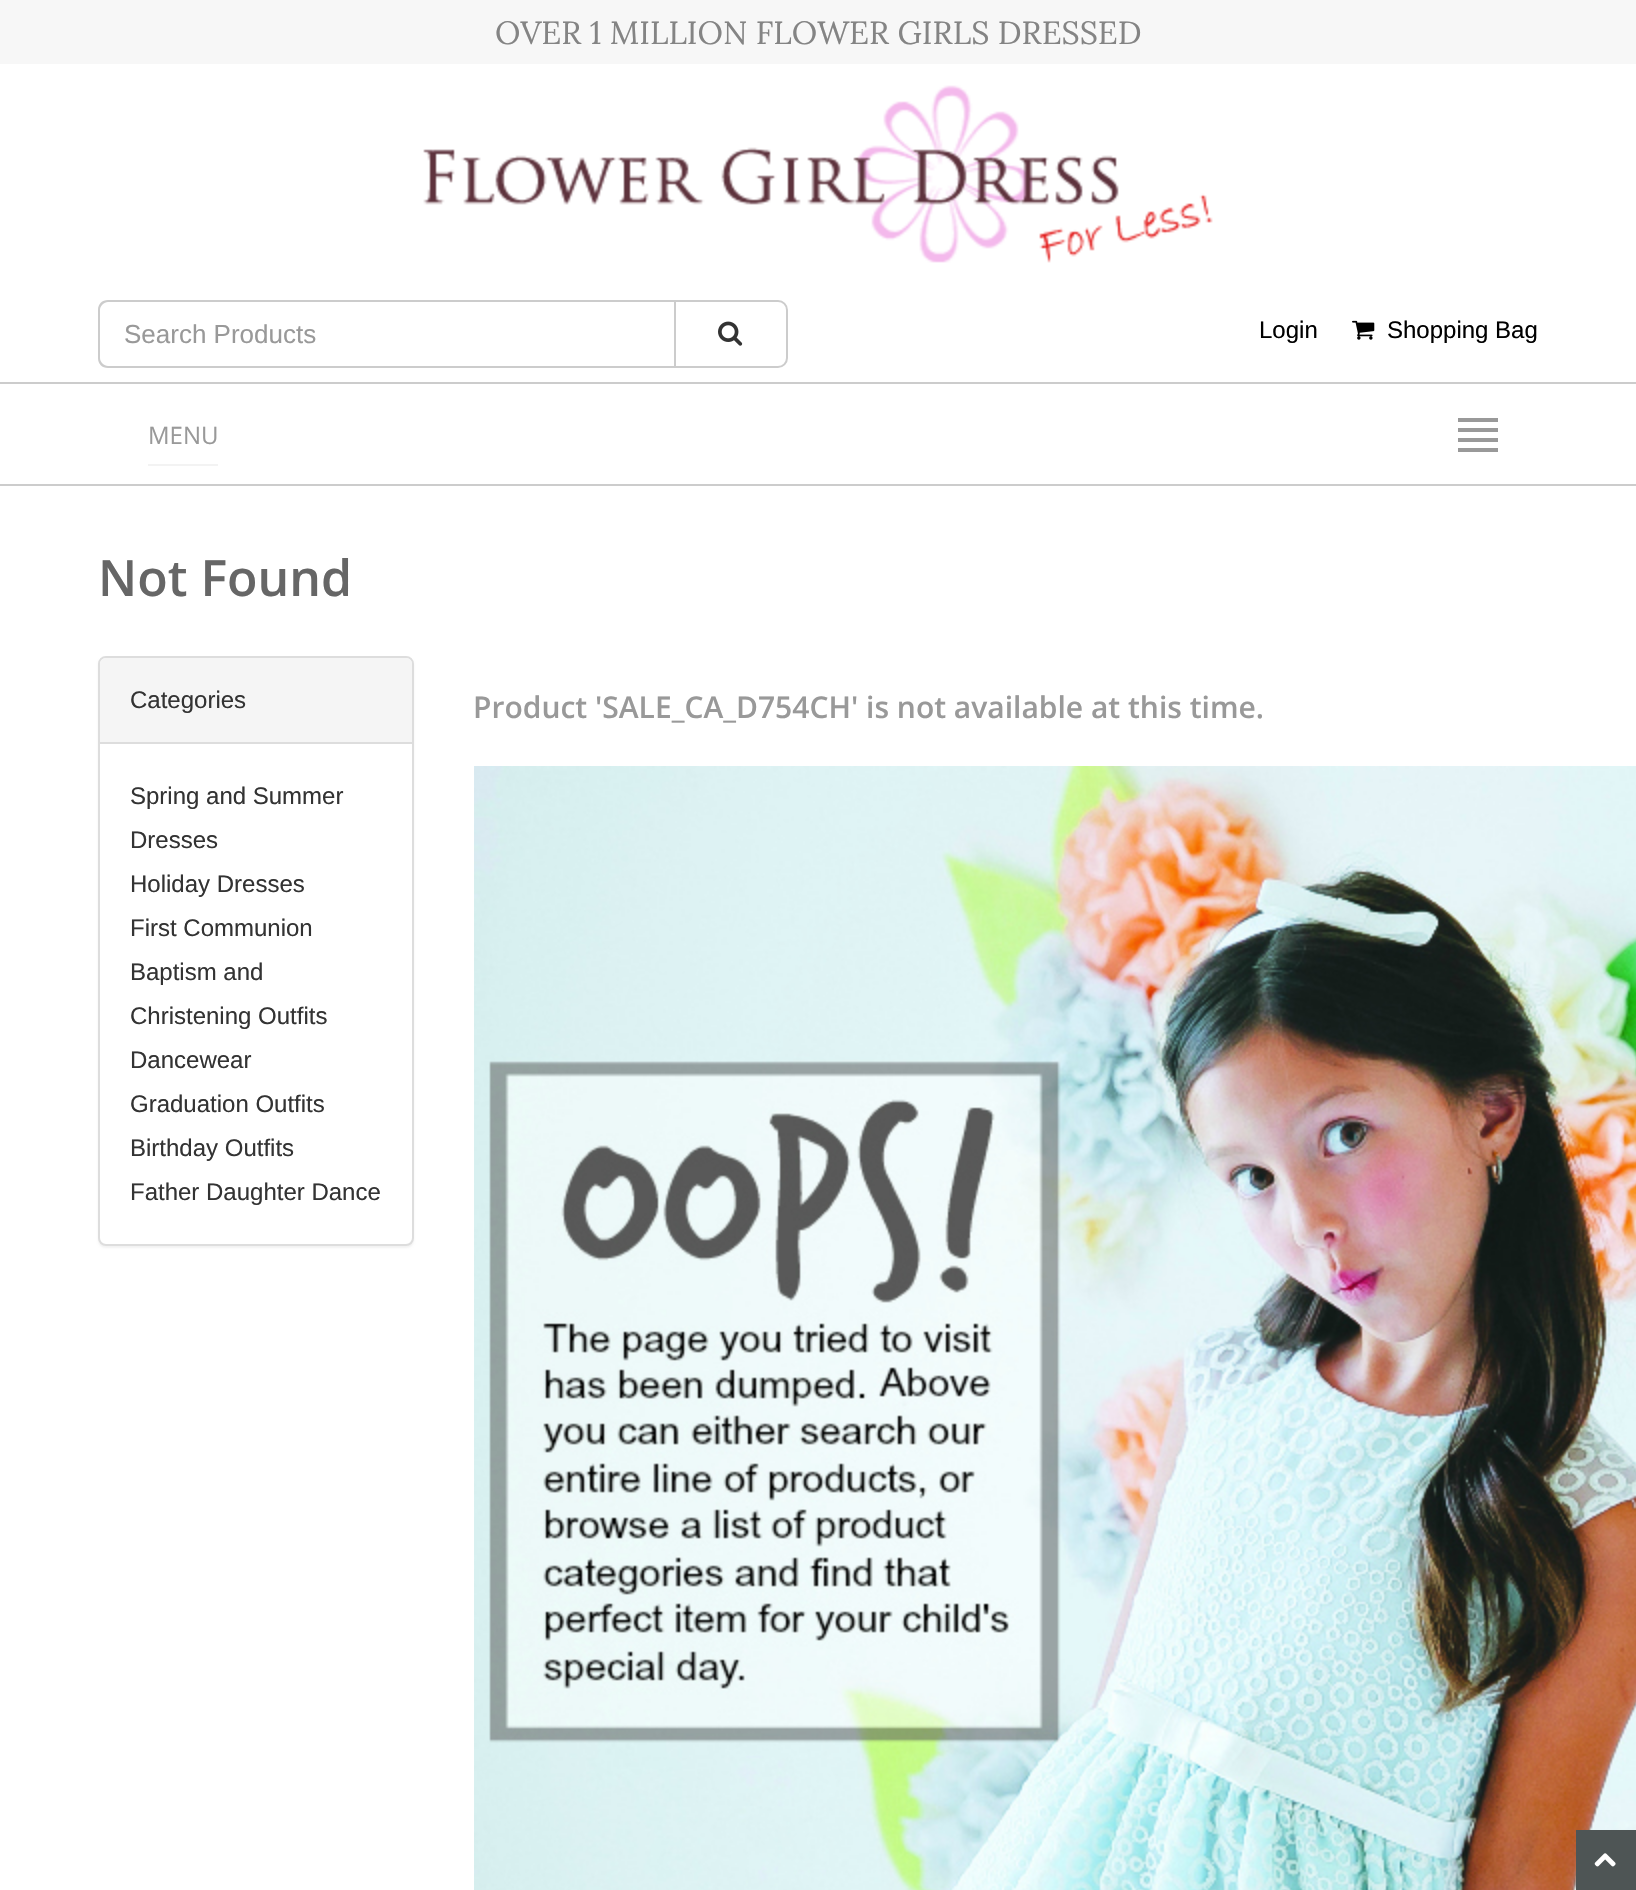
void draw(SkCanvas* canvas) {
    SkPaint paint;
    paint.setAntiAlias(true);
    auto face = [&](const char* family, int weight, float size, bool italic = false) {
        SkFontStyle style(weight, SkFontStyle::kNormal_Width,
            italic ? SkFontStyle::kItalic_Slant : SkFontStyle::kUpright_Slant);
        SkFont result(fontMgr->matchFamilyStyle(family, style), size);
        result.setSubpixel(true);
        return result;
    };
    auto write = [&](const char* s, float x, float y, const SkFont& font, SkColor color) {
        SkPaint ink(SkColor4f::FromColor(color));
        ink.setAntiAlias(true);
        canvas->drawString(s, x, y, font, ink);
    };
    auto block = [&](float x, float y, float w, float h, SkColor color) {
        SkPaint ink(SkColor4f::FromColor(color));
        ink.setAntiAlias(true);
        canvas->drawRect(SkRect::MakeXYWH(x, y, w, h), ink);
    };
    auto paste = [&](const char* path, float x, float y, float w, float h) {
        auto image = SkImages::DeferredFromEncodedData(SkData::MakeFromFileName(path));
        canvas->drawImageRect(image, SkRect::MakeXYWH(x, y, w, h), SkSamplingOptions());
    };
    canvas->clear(SK_ColorWHITE);
    block(0, 0, 1636, 64, SkColorSetRGB(247, 247, 247));
    auto kFont1 = face("Lora", 400, 32);
    write("OVER 1 MILLION FLOWER GIRLS DRESSED", 495, 44, kFont1, SkColorSetRGB(132, 132, 132));
    paste("pic1.png", 423, 85, 790, 178);
    paint.setColor(SkColorSetRGB(204, 204, 204));
    canvas->drawPath(SkPathBuilder(SkPathFillType::kEvenOdd).moveTo(108, 300).lineTo(674, 300).lineTo(674, 368).lineTo(108, 368).cubicTo(102, 368, 98, 364, 98, 358).lineTo(98, 310).cubicTo(98, 304, 102, 300, 108, 300).close().moveTo(108, 302).lineTo(674, 302).lineTo(674, 366).lineTo(108, 366).cubicTo(104, 366, 100, 362, 100, 358).lineTo(100, 310).cubicTo(100, 306, 104, 302, 108, 302).close().detach(), paint);
    auto kFont2 = face("Liberation Sans", 400, 26);
    write("Search Products", 124, 343, kFont2, SkColorSetRGB(153, 153, 153));
    paint.setStyle(SkPaint::kStroke_Style);
    paint.setStrokeWidth(2);
    canvas->drawPath(SkPathBuilder().moveTo(675, 301).lineTo(778, 301).cubicTo(783, 301, 787, 305, 787, 310).lineTo(787, 358).cubicTo(787, 363, 783, 367, 778, 367).lineTo(675, 367).close().detach(), paint);
    paste("pic2.png", 718, 321, 25, 25);
    auto kFont3 = face("Liberation Sans", 400, 24);
    write("Login", 1259, 338, kFont3, SK_ColorBLACK);
    paste("pic3.png", 1352, 320, 23, 20);
    write("Shopping Bag", 1387, 338, kFont3, SK_ColorBLACK);
    block(0, 382, 1636, 2, SkColorSetRGB(204, 204, 204));
    block(0, 484, 1636, 2, SkColorSetRGB(204, 204, 204));
    block(148, 464, 70, 2, SkColorSetRGB(243, 243, 243));
    auto kFont4 = face("Open Sans", 400, 24);
    write("MENU", 148, 444, kFont4, SkColorSetRGB(153, 153, 153));
    block(1458, 418, 40, 4, SkColorSetRGB(153, 153, 153));
    block(1458, 428, 40, 4, SkColorSetRGB(153, 153, 153));
    block(1458, 438, 40, 4, SkColorSetRGB(153, 153, 153));
    block(1458, 448, 40, 4, SkColorSetRGB(153, 153, 153));
    auto kFont5 = face("Open Sans", 600, 50);
    write("Not Found", 98, 596, kFont5, SkColorSetRGB(102, 102, 102));
    paint.setStyle(SkPaint::kFill_Style);
    paint.setColor(SkColorSetARGB(13, 0, 0, 0));
    paint.setMaskFilter(SkMaskFilter::MakeBlur(kNormal_SkBlurStyle, 1));
    canvas->drawRoundRect(SkRect::MakeXYWH(98, 658, 316, 590), 8, 8, paint);
    paint.setMaskFilter(nullptr);
    paint.setColor(SK_ColorWHITE);
    canvas->drawRoundRect(SkRect::MakeXYWH(99, 657, 314, 588), 7, 7, paint);
    paint.setStyle(SkPaint::kStroke_Style);
    paint.setColor(SkColorSetRGB(221, 221, 221));
    canvas->drawRoundRect(SkRect::MakeXYWH(99, 657, 314, 588), 7, 7, paint);
    paint.setStyle(SkPaint::kFill_Style);
    paint.setColor(SkColorSetRGB(245, 245, 245));
    canvas->drawPath(SkPathBuilder().moveTo(106, 658).lineTo(406, 658).cubicTo(409.5f, 658, 412, 660.5f, 412, 664).lineTo(412, 744).lineTo(100, 744).lineTo(100, 664).cubicTo(100, 660.5f, 102.5f, 658, 106, 658).close().detach(), paint);
    block(100, 742, 312, 2, SkColorSetRGB(221, 221, 221));
    write("Categories", 130, 708, kFont3, SkColorSetRGB(51, 51, 51));
    write("Spring and Summer", 130, 804, kFont3, SkColorSetRGB(51, 51, 51));
    write("Dresses", 130, 848, kFont3, SkColorSetRGB(51, 51, 51));
    write("Holiday Dresses", 130, 892, kFont3, SkColorSetRGB(51, 51, 51));
    write("First Communion", 130, 936, kFont3, SkColorSetRGB(51, 51, 51));
    write("Baptism and", 130, 980, kFont3, SkColorSetRGB(51, 51, 51));
    write("Christening Outfits", 130, 1024, kFont3, SkColorSetRGB(51, 51, 51));
    write("Dancewear", 130, 1068, kFont3, SkColorSetRGB(51, 51, 51));
    write("Graduation Outfits", 130, 1112, kFont3, SkColorSetRGB(51, 51, 51));
    write("Birthday Outfits", 130, 1156, kFont3, SkColorSetRGB(51, 51, 51));
    write("Father Daughter Dance", 130, 1200, kFont3, SkColorSetRGB(51, 51, 51));
    auto kFont6 = face("Open Sans", 600, 30);
    write("Product 'SALE_CA_D754CH' is not available at this time.", 473, 718, kFont6, SkColorSetRGB(153, 153, 153));
    paste("pic4.png", 474, 766, 1162, 1124);
    block(1576, 1830, 60, 60, SkColorSetRGB(78, 85, 85));
    paste("pic5.png", 1594, 1853, 22, 14);
}
